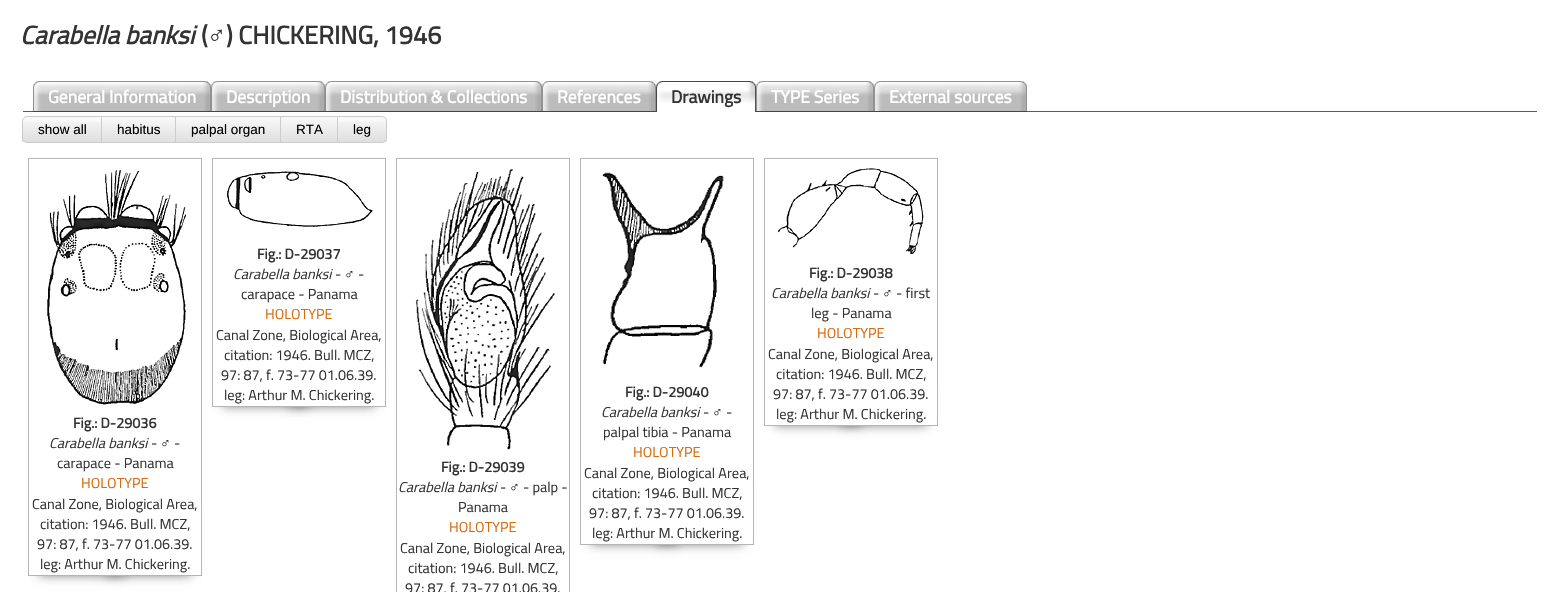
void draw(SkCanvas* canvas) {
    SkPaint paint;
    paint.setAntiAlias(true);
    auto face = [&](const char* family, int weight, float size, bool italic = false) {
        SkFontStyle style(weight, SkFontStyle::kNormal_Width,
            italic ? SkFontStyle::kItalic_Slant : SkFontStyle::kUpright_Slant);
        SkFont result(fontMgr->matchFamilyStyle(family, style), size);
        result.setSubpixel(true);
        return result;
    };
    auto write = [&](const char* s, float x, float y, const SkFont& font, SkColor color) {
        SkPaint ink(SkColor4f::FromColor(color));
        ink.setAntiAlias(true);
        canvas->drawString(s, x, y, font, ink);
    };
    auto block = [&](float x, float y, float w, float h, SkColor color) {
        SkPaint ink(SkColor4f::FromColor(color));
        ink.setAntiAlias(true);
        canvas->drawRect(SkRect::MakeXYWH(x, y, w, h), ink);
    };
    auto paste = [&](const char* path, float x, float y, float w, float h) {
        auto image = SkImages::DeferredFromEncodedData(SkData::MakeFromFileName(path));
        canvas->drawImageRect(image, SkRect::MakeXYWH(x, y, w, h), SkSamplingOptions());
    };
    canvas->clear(SK_ColorWHITE);
    auto kFont1 = face("Titillium Web", 700, 25.5f, true);
    write("Carabella banksi", 20, 44, kFont1, SkColorSetRGB(51, 51, 51));
    auto kFont2 = face("Titillium Web", 700, 25.5f);
    write("(", 201, 44, kFont2, SkColorSetRGB(51, 51, 51));
    auto kFont3 = face("Liberation Serif", 700, 25.5f);
    write("♂", 207, 44, kFont3, SkColorSetRGB(51, 51, 51));
    write(") CHICKERING, 1946", 226, 44, kFont2, SkColorSetRGB(51, 51, 51));
    block(23, 111, 1514, 1, SkColorSetRGB(93, 93, 93));
    paste("pic1.png", 33, 81, 9, 30);
    block(33, 111, 623, 1, SkColorSetRGB(70, 70, 70));
    paste("pic2.png", 42, 81, 169, 30);
    auto kFont4 = face("Titillium Web", 700, 17.6f);
    write("General Information", 48, 103, kFont4, SK_ColorWHITE);
    paste("pic1.png", 211, 81, 9, 30);
    paste("pic3.png", 220, 81, 105, 30);
    write("Description", 226, 103, kFont4, SK_ColorWHITE);
    paste("pic1.png", 325, 81, 9, 30);
    paste("pic4.png", 334, 81, 208, 30);
    write("Distribution & Collections", 340, 103, kFont4, SK_ColorWHITE);
    paste("pic1.png", 542, 81, 9, 30);
    paste("pic5.png", 551, 81, 105, 30);
    write("References", 557, 103, kFont4, SK_ColorWHITE);
    paste("pic6.png", 656, 81, 9, 31);
    paste("pic7.png", 665, 81, 91, 31);
    write("Drawings", 671, 103, kFont4, SkColorSetRGB(51, 51, 51));
    paste("pic1.png", 756, 81, 9, 30);
    block(756, 111, 271, 1, SkColorSetRGB(70, 70, 70));
    paste("pic8.png", 765, 81, 109, 30);
    write("TYPE Series", 771, 103, kFont4, SK_ColorWHITE);
    paste("pic1.png", 874, 81, 9, 30);
    paste("pic9.png", 883, 81, 144, 30);
    write("External sources", 889, 103, kFont4, SK_ColorWHITE);
    paint.setColor(SkColorSetRGB(248, 248, 248));
    canvas->drawPath(SkPathBuilder().moveTo(27, 116).lineTo(102, 116).lineTo(102, 143).lineTo(27, 143).cubicTo(24, 143, 22, 141, 22, 138).lineTo(22, 121).cubicTo(22, 118, 24, 116, 27, 116).close().detach(), paint);
    {
        const SkColor colors[] = {SkColorSetARGB(0, 0, 0, 0), SkColorSetARGB(26, 0, 0, 0)};
        const float stops[] = {0, 1};
        const SkPoint ends[] = {{62, 117}, {62, 142}};
        paint.setShader(SkGradientShader::MakeLinear(ends, colors, stops, 2, SkTileMode::kClamp));
        paint.setAlpha(255);
    }
    canvas->drawRect(SkRect::MakeXYWH(22, 122, 79, 20), paint);
    paint.setStyle(SkPaint::kStroke_Style);
    paint.setStrokeWidth(1);
    paint.setShader(nullptr);
    paint.setColor(SkColorSetRGB(204, 204, 204));
    canvas->drawPath(SkPathBuilder().moveTo(27, 116.5f).lineTo(101.5f, 116.5f).lineTo(101.5f, 142.5f).lineTo(27, 142.5f).cubicTo(24.5f, 142.5f, 22.5f, 140.5f, 22.5f, 138).lineTo(22.5f, 121).cubicTo(22.5f, 118.5f, 24.5f, 116.5f, 27, 116.5f).close().detach(), paint);
    auto kFont5 = face("Liberation Sans", 400, 13.5f);
    write("show all", 38, 134, kFont5, SK_ColorBLACK);
    paint.setStyle(SkPaint::kFill_Style);
    {
        const SkColor colors[] = {SkColorSetRGB(248, 248, 248), SkColorSetRGB(223, 223, 223)};
        const float stops[] = {0, 1};
        const SkPoint ends[] = {{139, 117}, {139, 142}};
        paint.setShader(SkGradientShader::MakeLinear(ends, colors, stops, 2, SkTileMode::kClamp));
        paint.setAlpha(255);
    }
    canvas->drawRect(SkRect::MakeXYWH(102, 117, 73, 25), paint);
    paint.setStyle(SkPaint::kStroke_Style);
    paint.setShader(nullptr);
    paint.setColor(SkColorSetRGB(204, 204, 204));
    canvas->drawRect(SkRect::MakeXYWH(101.5f, 116.5f, 74, 26), paint);
    write("habitus", 117, 134, kFont5, SK_ColorBLACK);
    paint.setStyle(SkPaint::kFill_Style);
    {
        const SkColor colors[] = {SkColorSetRGB(248, 248, 248), SkColorSetRGB(223, 223, 223)};
        const float stops[] = {0, 1};
        const SkPoint ends[] = {{228, 117}, {228, 142}};
        paint.setShader(SkGradientShader::MakeLinear(ends, colors, stops, 2, SkTileMode::kClamp));
        paint.setAlpha(255);
    }
    canvas->drawRect(SkRect::MakeXYWH(176, 117, 104, 25), paint);
    paint.setStyle(SkPaint::kStroke_Style);
    paint.setShader(nullptr);
    paint.setColor(SkColorSetRGB(204, 204, 204));
    canvas->drawRect(SkRect::MakeXYWH(175.5f, 116.5f, 105, 26), paint);
    write("palpal organ", 191, 134, kFont5, SK_ColorBLACK);
    paint.setStyle(SkPaint::kFill_Style);
    {
        const SkColor colors[] = {SkColorSetRGB(248, 248, 248), SkColorSetRGB(223, 223, 223)};
        const float stops[] = {0, 1};
        const SkPoint ends[] = {{309, 117}, {309, 142}};
        paint.setShader(SkGradientShader::MakeLinear(ends, colors, stops, 2, SkTileMode::kClamp));
        paint.setAlpha(255);
    }
    canvas->drawRect(SkRect::MakeXYWH(281, 117, 56, 25), paint);
    paint.setStyle(SkPaint::kStroke_Style);
    paint.setShader(nullptr);
    paint.setColor(SkColorSetRGB(204, 204, 204));
    canvas->drawRect(SkRect::MakeXYWH(280.5f, 116.5f, 57, 26), paint);
    write("RTA", 296, 134, kFont5, SK_ColorBLACK);
    paint.setStyle(SkPaint::kFill_Style);
    paint.setColor(SkColorSetRGB(248, 248, 248));
    canvas->drawPath(SkPathBuilder().moveTo(337, 116).lineTo(382, 116).cubicTo(385, 116, 387, 118, 387, 121).lineTo(387, 138).cubicTo(387, 141, 385, 143, 382, 143).lineTo(337, 143).close().detach(), paint);
    {
        const SkColor colors[] = {SkColorSetARGB(0, 0, 0, 0), SkColorSetARGB(26, 0, 0, 0)};
        const float stops[] = {0, 1};
        const SkPoint ends[] = {{362, 117}, {362, 142}};
        paint.setShader(SkGradientShader::MakeLinear(ends, colors, stops, 2, SkTileMode::kClamp));
        paint.setAlpha(255);
    }
    canvas->drawRect(SkRect::MakeXYWH(338, 122, 49, 20), paint);
    paint.setStyle(SkPaint::kStroke_Style);
    paint.setShader(nullptr);
    paint.setColor(SkColorSetRGB(204, 204, 204));
    canvas->drawPath(SkPathBuilder().moveTo(337.5f, 116.5f).lineTo(382, 116.5f).cubicTo(384.5f, 116.5f, 386.5f, 118.5f, 386.5f, 121).lineTo(386.5f, 138).cubicTo(386.5f, 140.5f, 384.5f, 142.5f, 382, 142.5f).lineTo(337.5f, 142.5f).close().detach(), paint);
    write("leg", 353, 134, kFont5, SK_ColorBLACK);
    paint.setStyle(SkPaint::kFill_Style);
    paint.setColor(SkColorSetRGB(119, 119, 119));
    paint.setMaskFilter(SkMaskFilter::MakeBlur(kNormal_SkBlurStyle, 5));
    canvas->drawRect(SkRect::MakeXYWH(223, 372, 86, 34), paint);
    paint.setMaskFilter(nullptr);
    paint.setMaskFilter(SkMaskFilter::MakeBlur(kNormal_SkBlurStyle, 5));
    canvas->drawRect(SkRect::MakeXYWH(289, 372, 86, 34), paint);
    paint.setMaskFilter(nullptr);
    block(213, 360, 172, 46, SK_ColorWHITE);
    paint.setStyle(SkPaint::kStroke_Style);
    paint.setColor(SkColorSetRGB(182, 181, 180));
    canvas->drawRect(SkRect::MakeXYWH(212.5f, 158.5f, 173, 248), paint);
    paste("pic10.png", 227, 171, 146, 56);
    auto kFont6 = face("Titillium Web", 700, 14.4f);
    write("Fig.: D-29037", 257, 259, kFont6, SkColorSetRGB(51, 51, 51));
    auto kFont7 = face("Titillium Web", 400, 14.4f, true);
    write("Carabella banksi", 233, 279, kFont7, SkColorSetRGB(51, 51, 51));
    auto kFont8 = face("Titillium Web", 400, 14.4f);
    write("-", 335, 279, kFont8, SkColorSetRGB(51, 51, 51));
    auto kFont9 = face("Liberation Serif", 400, 14.4f);
    write("♂", 344, 279, kFont9, SkColorSetRGB(51, 51, 51));
    write("-", 358, 279, kFont8, SkColorSetRGB(51, 51, 51));
    write("carapace - Panama", 241, 299, kFont8, SkColorSetRGB(51, 51, 51));
    write("HOLOTYPE", 265, 319, kFont8, SkColorSetRGB(214, 106, 15));
    write("Canal Zone, Biological Area,", 216, 340, kFont8, SkColorSetRGB(51, 51, 51));
    write("citation: 1946. Bull. MCZ,", 224, 360, kFont8, SkColorSetRGB(51, 51, 51));
    write("97: 87, f. 73-77 01.06.39.", 221, 380, kFont8, SkColorSetRGB(51, 51, 51));
    write("leg: Arthur M. Chickering.", 224, 400, kFont8, SkColorSetRGB(51, 51, 51));
    paint.setStyle(SkPaint::kFill_Style);
    paint.setColor(SkColorSetRGB(119, 119, 119));
    paint.setMaskFilter(SkMaskFilter::MakeBlur(kNormal_SkBlurStyle, 5));
    canvas->drawRect(SkRect::MakeXYWH(775, 387, 86, 38), paint);
    paint.setMaskFilter(nullptr);
    paint.setMaskFilter(SkMaskFilter::MakeBlur(kNormal_SkBlurStyle, 5));
    canvas->drawRect(SkRect::MakeXYWH(841, 387, 86, 38), paint);
    paint.setMaskFilter(nullptr);
    block(765, 375, 172, 50, SK_ColorWHITE);
    paint.setStyle(SkPaint::kStroke_Style);
    paint.setColor(SkColorSetRGB(182, 181, 180));
    canvas->drawRect(SkRect::MakeXYWH(764.5f, 158.5f, 173, 267), paint);
    paste("pic11.png", 777, 168, 147, 86);
    write("Fig.: D-29038", 809, 278, kFont6, SkColorSetRGB(51, 51, 51));
    write("Carabella banksi", 771, 298, kFont7, SkColorSetRGB(51, 51, 51));
    write("-", 873, 298, kFont8, SkColorSetRGB(51, 51, 51));
    write("♂", 882, 298, kFont9, SkColorSetRGB(51, 51, 51));
    write("- first", 896, 298, kFont8, SkColorSetRGB(51, 51, 51));
    write("leg - Panama", 811, 318, kFont8, SkColorSetRGB(51, 51, 51));
    write("HOLOTYPE", 817, 338, kFont8, SkColorSetRGB(214, 106, 15));
    write("Canal Zone, Biological Area,", 768, 359, kFont8, SkColorSetRGB(51, 51, 51));
    write("citation: 1946. Bull. MCZ,", 776, 379, kFont8, SkColorSetRGB(51, 51, 51));
    write("97: 87, f. 73-77 01.06.39.", 773, 399, kFont8, SkColorSetRGB(51, 51, 51));
    write("leg: Arthur M. Chickering.", 776, 419, kFont8, SkColorSetRGB(51, 51, 51));
    paint.setStyle(SkPaint::kFill_Style);
    paint.setColor(SkColorSetRGB(119, 119, 119));
    paint.setMaskFilter(SkMaskFilter::MakeBlur(kNormal_SkBlurStyle, 5));
    canvas->drawRect(SkRect::MakeXYWH(39, 507, 86, 68), paint);
    paint.setMaskFilter(nullptr);
    paint.setMaskFilter(SkMaskFilter::MakeBlur(kNormal_SkBlurStyle, 5));
    canvas->drawRect(SkRect::MakeXYWH(105, 507, 86, 68), paint);
    paint.setMaskFilter(nullptr);
    block(29, 495, 172, 80, SK_ColorWHITE);
    paint.setStyle(SkPaint::kStroke_Style);
    paint.setColor(SkColorSetRGB(182, 181, 180));
    canvas->drawRect(SkRect::MakeXYWH(28.5f, 158.5f, 173, 417), paint);
    paste("pic12.png", 47, 169, 139, 236);
    write("Fig.: D-29036", 73, 428, kFont6, SkColorSetRGB(51, 51, 51));
    write("Carabella banksi", 49, 448, kFont7, SkColorSetRGB(51, 51, 51));
    write("-", 151, 448, kFont8, SkColorSetRGB(51, 51, 51));
    write("♂", 160, 448, kFont9, SkColorSetRGB(51, 51, 51));
    write("-", 174, 448, kFont8, SkColorSetRGB(51, 51, 51));
    write("carapace - Panama", 57, 468, kFont8, SkColorSetRGB(51, 51, 51));
    write("HOLOTYPE", 81, 488, kFont8, SkColorSetRGB(214, 106, 15));
    write("Canal Zone, Biological Area,", 32, 509, kFont8, SkColorSetRGB(51, 51, 51));
    write("citation: 1946. Bull. MCZ,", 40, 529, kFont8, SkColorSetRGB(51, 51, 51));
    write("97: 87, f. 73-77 01.06.39.", 37, 549, kFont8, SkColorSetRGB(51, 51, 51));
    write("leg: Arthur M. Chickering.", 40, 569, kFont8, SkColorSetRGB(51, 51, 51));
    canvas->drawRect(SkRect::MakeXYWH(396.5f, 158.5f, 173, 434), paint);
    paste("pic13.png", 415, 169, 140, 281);
    write("Fig.: D-29039", 441, 472, kFont6, SkColorSetRGB(51, 51, 51));
    write("Carabella banksi", 398, 492, kFont7, SkColorSetRGB(51, 51, 51));
    write("-", 500, 492, kFont8, SkColorSetRGB(51, 51, 51));
    write("♂", 509, 492, kFont9, SkColorSetRGB(51, 51, 51));
    write("- palp -", 523, 492, kFont8, SkColorSetRGB(51, 51, 51));
    write("Panama", 458, 512, kFont8, SkColorSetRGB(51, 51, 51));
    write("HOLOTYPE", 449, 532, kFont8, SkColorSetRGB(214, 106, 15));
    write("Canal Zone, Biological Area,", 400, 553, kFont8, SkColorSetRGB(51, 51, 51));
    write("citation: 1946. Bull. MCZ,", 408, 573, kFont8, SkColorSetRGB(51, 51, 51));
    write("97: 87, f. 73-77 01.06.39.", 405, 593, kFont8, SkColorSetRGB(51, 51, 51));
    paint.setStyle(SkPaint::kFill_Style);
    paint.setColor(SkColorSetRGB(119, 119, 119));
    paint.setMaskFilter(SkMaskFilter::MakeBlur(kNormal_SkBlurStyle, 5));
    canvas->drawRect(SkRect::MakeXYWH(591, 482, 86, 62), paint);
    paint.setMaskFilter(nullptr);
    paint.setMaskFilter(SkMaskFilter::MakeBlur(kNormal_SkBlurStyle, 5));
    canvas->drawRect(SkRect::MakeXYWH(657, 482, 86, 62), paint);
    paint.setMaskFilter(nullptr);
    block(581, 470, 172, 74, SK_ColorWHITE);
    paint.setStyle(SkPaint::kStroke_Style);
    paint.setColor(SkColorSetRGB(182, 181, 180));
    canvas->drawRect(SkRect::MakeXYWH(580.5f, 158.5f, 173, 386), paint);
    paste("pic14.png", 602, 172, 122, 196);
    write("Fig.: D-29040", 625, 397, kFont6, SkColorSetRGB(51, 51, 51));
    write("Carabella banksi", 601, 417, kFont7, SkColorSetRGB(51, 51, 51));
    write("-", 703, 417, kFont8, SkColorSetRGB(51, 51, 51));
    write("♂", 712, 417, kFont9, SkColorSetRGB(51, 51, 51));
    write("-", 726, 417, kFont8, SkColorSetRGB(51, 51, 51));
    write("palpal tibia - Panama", 603, 437, kFont8, SkColorSetRGB(51, 51, 51));
    write("HOLOTYPE", 633, 457, kFont8, SkColorSetRGB(214, 106, 15));
    write("Canal Zone, Biological Area,", 584, 478, kFont8, SkColorSetRGB(51, 51, 51));
    write("citation: 1946. Bull. MCZ,", 592, 498, kFont8, SkColorSetRGB(51, 51, 51));
    write("97: 87, f. 73-77 01.06.39.", 589, 518, kFont8, SkColorSetRGB(51, 51, 51));
    write("leg: Arthur M. Chickering.", 592, 538, kFont8, SkColorSetRGB(51, 51, 51));
}
